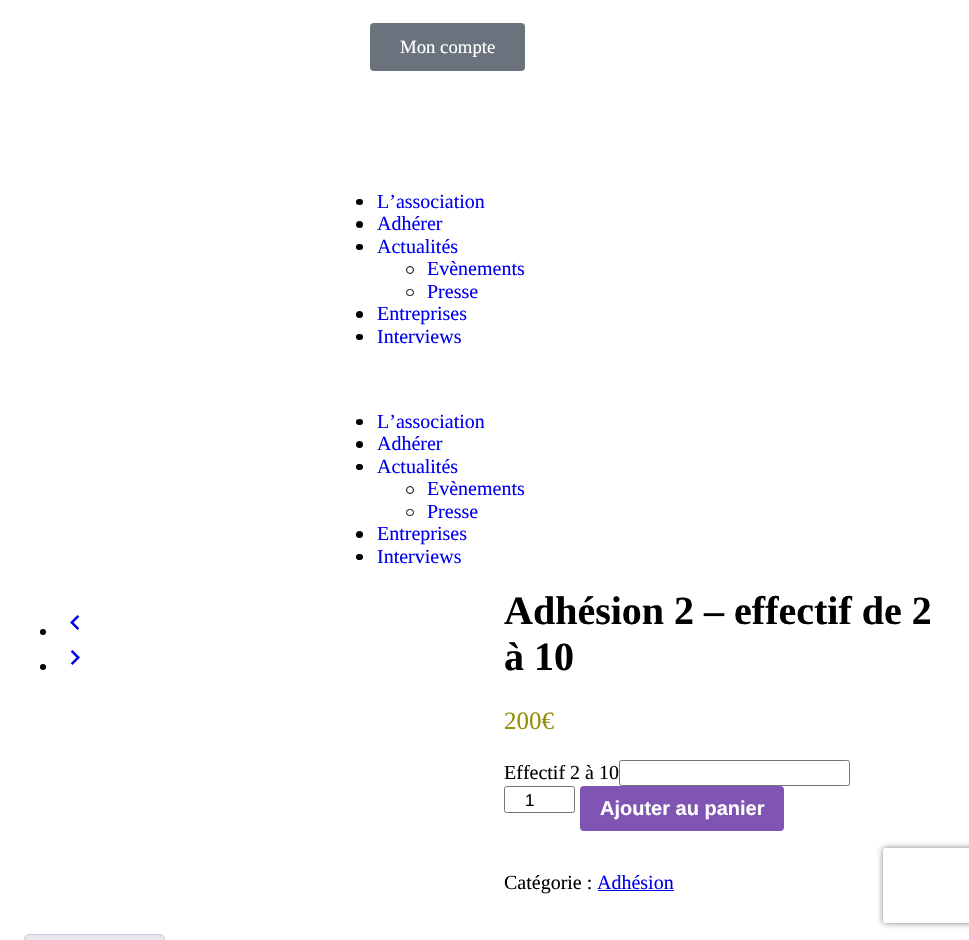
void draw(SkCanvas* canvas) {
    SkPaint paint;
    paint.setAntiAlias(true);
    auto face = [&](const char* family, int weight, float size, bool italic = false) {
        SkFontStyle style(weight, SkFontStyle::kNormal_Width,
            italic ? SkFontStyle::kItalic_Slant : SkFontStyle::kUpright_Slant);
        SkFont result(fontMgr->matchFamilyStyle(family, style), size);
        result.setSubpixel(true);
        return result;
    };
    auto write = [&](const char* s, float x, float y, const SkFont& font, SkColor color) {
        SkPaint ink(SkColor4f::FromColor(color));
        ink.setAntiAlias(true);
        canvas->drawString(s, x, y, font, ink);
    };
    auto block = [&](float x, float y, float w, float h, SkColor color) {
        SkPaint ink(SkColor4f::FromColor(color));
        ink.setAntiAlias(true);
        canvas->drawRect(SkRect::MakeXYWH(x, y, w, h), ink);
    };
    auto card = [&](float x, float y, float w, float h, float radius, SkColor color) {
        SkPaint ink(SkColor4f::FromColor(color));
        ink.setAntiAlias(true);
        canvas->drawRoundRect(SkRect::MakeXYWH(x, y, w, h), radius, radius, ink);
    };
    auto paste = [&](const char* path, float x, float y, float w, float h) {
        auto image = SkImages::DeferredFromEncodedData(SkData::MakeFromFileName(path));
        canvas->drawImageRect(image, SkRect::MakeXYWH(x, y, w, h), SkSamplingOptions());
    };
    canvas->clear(SK_ColorWHITE);
    card(370, 23, 155, 48, 4, SkColorSetRGB(105, 114, 125));
    auto kFont1 = face("Liberation Serif", 400, 18.75f);
    write("Mon compte", 400, 53, kFont1, SK_ColorWHITE);
    card(356, 199, 7, 6, 3, SK_ColorBLACK);
    auto kFont2 = face("Liberation Serif", 400, 20);
    write("L’association", 377, 208, kFont2, SkColorSetRGB(0, 0, 238));
    paint.setColor(SK_ColorBLACK);
    canvas->drawCircle(359.5f, 224.5f, 3.5f, paint);
    write("Adhérer", 377, 230, kFont2, SkColorSetRGB(0, 0, 238));
    card(356, 244, 7, 6, 3, SK_ColorBLACK);
    write("Actualités", 377, 253, kFont2, SkColorSetRGB(0, 0, 238));
    paint.setStyle(SkPaint::kStroke_Style);
    paint.setStrokeWidth(1);
    canvas->drawCircle(410, 270, 3.5f, paint);
    write("Evènements", 427, 275, kFont2, SkColorSetRGB(0, 0, 238));
    canvas->drawRoundRect(SkRect::MakeXYWH(406.5f, 289.5f, 7, 6), 3, 3, paint);
    write("Presse", 427, 298, kFont2, SkColorSetRGB(0, 0, 238));
    paint.setStyle(SkPaint::kFill_Style);
    canvas->drawCircle(359.5f, 314.5f, 3.5f, paint);
    write("Entreprises", 377, 320, kFont2, SkColorSetRGB(0, 0, 238));
    card(356, 334, 7, 6, 3, SK_ColorBLACK);
    write("Interviews", 377, 343, kFont2, SkColorSetRGB(0, 0, 238));
    card(356, 419, 7, 6, 3, SK_ColorBLACK);
    write("L’association", 377, 428, kFont2, SkColorSetRGB(0, 0, 238));
    canvas->drawCircle(359.5f, 444.5f, 3.5f, paint);
    write("Adhérer", 377, 450, kFont2, SkColorSetRGB(0, 0, 238));
    card(356, 464, 7, 6, 3, SK_ColorBLACK);
    write("Actualités", 377, 473, kFont2, SkColorSetRGB(0, 0, 238));
    paint.setStyle(SkPaint::kStroke_Style);
    canvas->drawCircle(410, 490, 3.5f, paint);
    write("Evènements", 427, 495, kFont2, SkColorSetRGB(0, 0, 238));
    canvas->drawRoundRect(SkRect::MakeXYWH(406.5f, 509.5f, 7, 6), 3, 3, paint);
    write("Presse", 427, 518, kFont2, SkColorSetRGB(0, 0, 238));
    paint.setStyle(SkPaint::kFill_Style);
    canvas->drawCircle(359.5f, 534.5f, 3.5f, paint);
    write("Entreprises", 377, 540, kFont2, SkColorSetRGB(0, 0, 238));
    card(356, 554, 7, 6, 3, SK_ColorBLACK);
    write("Interviews", 377, 563, kFont2, SkColorSetRGB(0, 0, 238));
    paste("pic1.png", 70, 615, 10, 15);
    canvas->drawCircle(43, 632, 3, paint);
    paste("pic2.png", 70, 650, 10, 15);
    canvas->drawCircle(43, 667, 3, paint);
    auto kFont3 = face("Liberation Serif", 700, 40);
    write("Adhésion 2 – effectif de 2", 504, 624, kFont3, SK_ColorBLACK);
    write("à 10", 504, 670, kFont3, SK_ColorBLACK);
    auto kFont4 = face("Liberation Serif", 400, 25);
    write("200€", 504, 729, kFont4, SkColorSetRGB(149, 142, 9));
    write("Effectif 2 à 10", 504, 779, kFont2, SK_ColorBLACK);
    paint.setStyle(SkPaint::kStroke_Style);
    paint.setColor(SkColorSetRGB(118, 118, 118));
    canvas->drawRoundRect(SkRect::MakeXYWH(619.5f, 760.5f, 230, 25), 2, 2, paint);
    canvas->drawRoundRect(SkRect::MakeXYWH(504.5f, 786.5f, 70, 26), 2, 2, paint);
    auto kFont5 = face("Liberation Sans", 400, 17);
    write("1", 525, 806, kFont5, SK_ColorBLACK);
    card(580, 786, 204, 45, 4, SkColorSetRGB(127, 84, 179));
    auto kFont6 = face("Liberation Sans", 700, 20);
    write("Ajouter au panier", 600, 815, kFont6, SK_ColorWHITE);
    write("Catégorie :", 504, 889, kFont2, SK_ColorBLACK);
    write("Adhésion", 597, 889, kFont2, SkColorSetRGB(0, 0, 238));
    block(598, 890, 76, 1, SkColorSetRGB(0, 0, 238));
    paint.setStyle(SkPaint::kFill_Style);
    paint.setColor(SkColorSetRGB(233, 230, 237));
    canvas->drawPath(SkPathBuilder().moveTo(29, 934.5f).lineTo(160, 934.5f).cubicTo(162.5f, 934.5f, 164.5f, 936.5f, 164.5f, 939).lineTo(164.5f, 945.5f).lineTo(24.5f, 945.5f).lineTo(24.5f, 939).cubicTo(24.5f, 936.5f, 26.5f, 934.5f, 29, 934.5f).close().detach(), paint);
    paint.setStyle(SkPaint::kStroke_Style);
    paint.setColor(SkColorSetRGB(207, 200, 216));
    canvas->drawPath(SkPathBuilder().moveTo(29, 934.5f).lineTo(160, 934.5f).cubicTo(162.5f, 934.5f, 164.5f, 936.5f, 164.5f, 939).lineTo(164.5f, 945.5f).lineTo(24.5f, 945.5f).lineTo(24.5f, 939).cubicTo(24.5f, 936.5f, 26.5f, 934.5f, 29, 934.5f).close().detach(), paint);
    canvas->save();
    canvas->clipPath(SkPathBuilder(SkPathFillType::kEvenOdd).moveTo(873, 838).lineTo(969, 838).lineTo(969, 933).lineTo(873, 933).close().moveTo(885.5f, 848).lineTo(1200.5f, 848).cubicTo(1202, 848, 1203, 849, 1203, 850.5f).lineTo(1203, 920.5f).cubicTo(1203, 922, 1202, 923, 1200.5f, 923).lineTo(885.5f, 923).cubicTo(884, 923, 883, 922, 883, 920.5f).lineTo(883, 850.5f).cubicTo(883, 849, 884, 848, 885.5f, 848).close().detach(), true);
    paint.setStyle(SkPaint::kFill_Style);
    paint.setColor(SkColorSetRGB(128, 128, 128));
    paint.setMaskFilter(SkMaskFilter::MakeBlur(kNormal_SkBlurStyle, 3));
    canvas->drawRoundRect(SkRect::MakeXYWH(883, 848, 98, 75), 2.5f, 2.5f, paint);
    paint.setMaskFilter(nullptr);
    canvas->restore();
}
